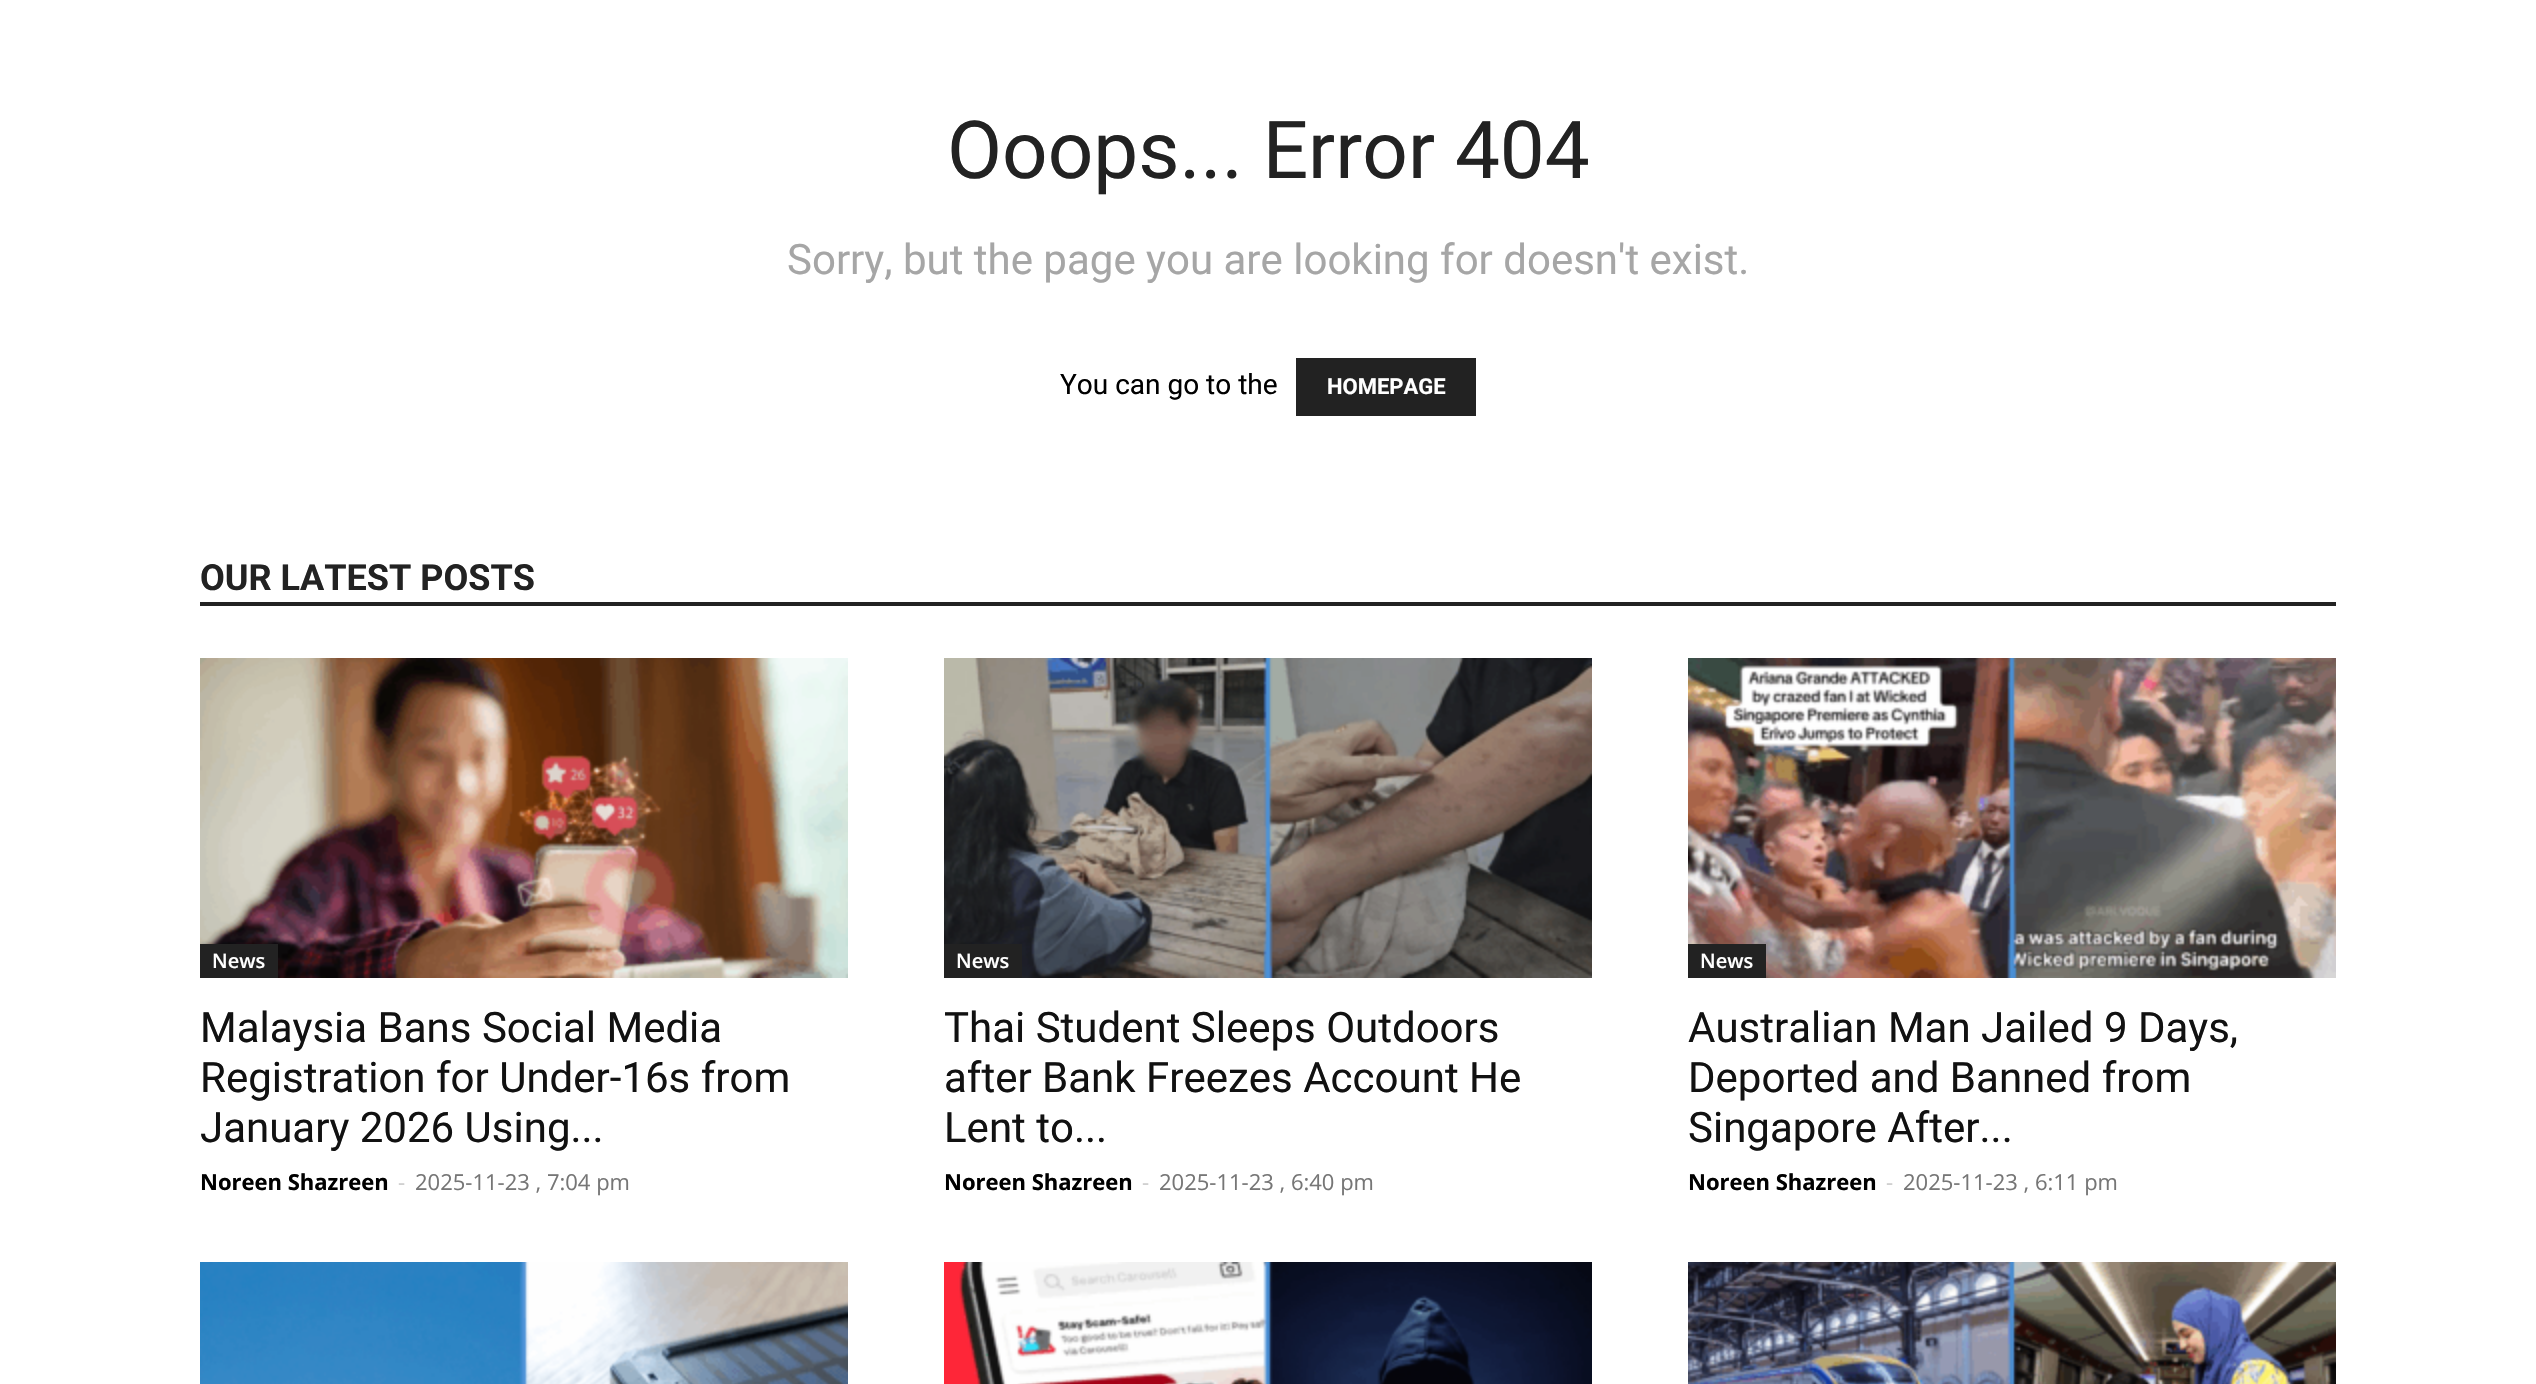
void draw(SkCanvas* canvas) {
    SkPaint paint;
    paint.setAntiAlias(true);
    auto face = [&](const char* family, int weight, float size, bool italic = false) {
        SkFontStyle style(weight, SkFontStyle::kNormal_Width,
            italic ? SkFontStyle::kItalic_Slant : SkFontStyle::kUpright_Slant);
        SkFont result(fontMgr->matchFamilyStyle(family, style), size);
        result.setSubpixel(true);
        return result;
    };
    auto write = [&](const char* s, float x, float y, const SkFont& font, SkColor color) {
        SkPaint ink(SkColor4f::FromColor(color));
        ink.setAntiAlias(true);
        canvas->drawString(s, x, y, font, ink);
    };
    auto block = [&](float x, float y, float w, float h, SkColor color) {
        SkPaint ink(SkColor4f::FromColor(color));
        ink.setAntiAlias(true);
        canvas->drawRect(SkRect::MakeXYWH(x, y, w, h), ink);
    };
    auto paste = [&](const char* path, float x, float y, float w, float h) {
        auto image = SkImages::DeferredFromEncodedData(SkData::MakeFromFileName(path));
        canvas->drawImageRect(image, SkRect::MakeXYWH(x, y, w, h), SkSamplingOptions());
    };
    canvas->clear(SK_ColorWHITE);
    auto kFont1 = face("Roboto", 400, 80);
    write("Ooops... Error 404", 947, 178, kFont1, SkColorSetRGB(34, 34, 34));
    auto kFont2 = face("Roboto", 400, 42);
    write("Sorry, but the page you are looking for doesn't exist.", 787, 274, kFont2, SkColorSetRGB(166, 166, 166));
    auto kFont3 = face("Roboto", 400, 28);
    write("You can go to the", 1060, 394, kFont3, SK_ColorBLACK);
    block(1296, 358, 180, 58, SkColorSetRGB(34, 34, 34));
    auto kFont4 = face("Roboto", 700, 22);
    write("HOMEPAGE", 1327, 394, kFont4, SK_ColorWHITE);
    block(200, 602, 2136, 4, SkColorSetRGB(34, 34, 34));
    auto kFont5 = face("Roboto", 700, 36);
    write("OUR LATEST POSTS", 200, 590, kFont5, SkColorSetRGB(34, 34, 34));
    paste("pic1.png", 200, 658, 648, 320);
    block(200, 944, 78, 34, SkColorSetRGB(34, 34, 34));
    auto kFont6 = face("Open Sans", 600, 20);
    write("News", 212, 968, kFont6, SK_ColorWHITE);
    write("Malaysia Bans Social Media", 200, 1042, kFont2, SkColorSetRGB(17, 17, 17));
    write("Registration for Under-16s from", 200, 1092, kFont2, SkColorSetRGB(17, 17, 17));
    write("January 2026 Using...", 200, 1142, kFont2, SkColorSetRGB(17, 17, 17));
    auto kFont7 = face("Open Sans", 700, 22);
    write("Noreen Shazreen", 200, 1190, kFont7, SK_ColorBLACK);
    auto kFont8 = face("Open Sans", 400, 22);
    write("-", 398, 1190, kFont8, SkColorSetRGB(204, 204, 204));
    write("2025-11-23 , 7:04 pm", 415, 1190, kFont8, SkColorSetRGB(118, 118, 118));
    paste("pic2.png", 944, 658, 648, 320);
    block(944, 944, 78, 34, SkColorSetRGB(34, 34, 34));
    write("News", 956, 968, kFont6, SK_ColorWHITE);
    write("Thai Student Sleeps Outdoors", 944, 1042, kFont2, SkColorSetRGB(17, 17, 17));
    write("after Bank Freezes Account He", 944, 1092, kFont2, SkColorSetRGB(17, 17, 17));
    write("Lent to...", 944, 1142, kFont2, SkColorSetRGB(17, 17, 17));
    write("Noreen Shazreen", 944, 1190, kFont7, SK_ColorBLACK);
    write("-", 1142, 1190, kFont8, SkColorSetRGB(204, 204, 204));
    write("2025-11-23 , 6:40 pm", 1159, 1190, kFont8, SkColorSetRGB(118, 118, 118));
    paste("pic3.png", 1688, 658, 648, 320);
    block(1688, 944, 78, 34, SkColorSetRGB(34, 34, 34));
    write("News", 1700, 968, kFont6, SK_ColorWHITE);
    write("Australian Man Jailed 9 Days,", 1688, 1042, kFont2, SkColorSetRGB(17, 17, 17));
    write("Deported and Banned from", 1688, 1092, kFont2, SkColorSetRGB(17, 17, 17));
    write("Singapore After...", 1688, 1142, kFont2, SkColorSetRGB(17, 17, 17));
    write("Noreen Shazreen", 1688, 1190, kFont7, SK_ColorBLACK);
    write("-", 1886, 1190, kFont8, SkColorSetRGB(204, 204, 204));
    write("2025-11-23 , 6:11 pm", 1903, 1190, kFont8, SkColorSetRGB(118, 118, 118));
    paste("pic4.png", 200, 1262, 648, 122);
    paste("pic5.png", 944, 1262, 648, 122);
    paste("pic6.png", 1688, 1262, 648, 122);
}
